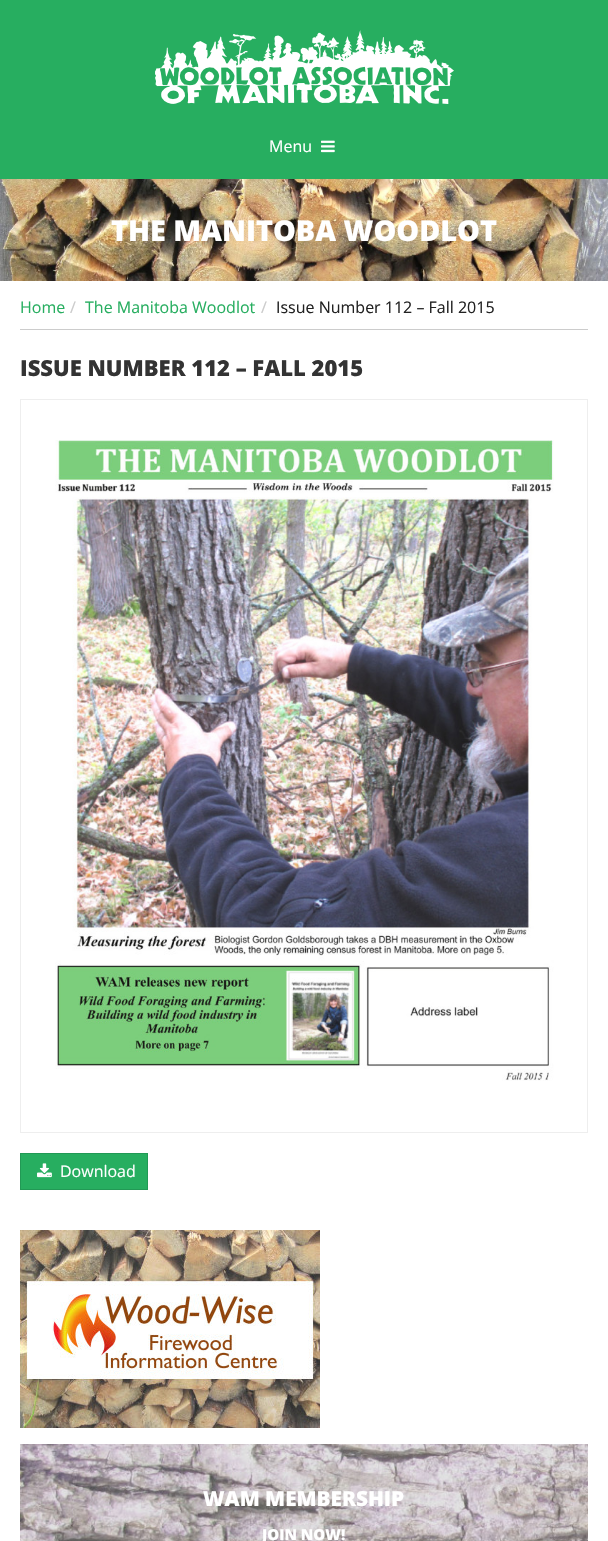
void draw(SkCanvas* canvas) {
    SkPaint paint;
    paint.setAntiAlias(true);
    auto face = [&](const char* family, int weight, float size, bool italic = false) {
        SkFontStyle style(weight, SkFontStyle::kNormal_Width,
            italic ? SkFontStyle::kItalic_Slant : SkFontStyle::kUpright_Slant);
        SkFont result(fontMgr->matchFamilyStyle(family, style), size);
        result.setSubpixel(true);
        return result;
    };
    auto write = [&](const char* s, float x, float y, const SkFont& font, SkColor color) {
        SkPaint ink(SkColor4f::FromColor(color));
        ink.setAntiAlias(true);
        canvas->drawString(s, x, y, font, ink);
    };
    auto block = [&](float x, float y, float w, float h, SkColor color) {
        SkPaint ink(SkColor4f::FromColor(color));
        ink.setAntiAlias(true);
        canvas->drawRect(SkRect::MakeXYWH(x, y, w, h), ink);
    };
    auto paste = [&](const char* path, float x, float y, float w, float h) {
        auto image = SkImages::DeferredFromEncodedData(SkData::MakeFromFileName(path));
        canvas->drawImageRect(image, SkRect::MakeXYWH(x, y, w, h), SkSamplingOptions());
    };
    canvas->clear(SK_ColorWHITE);
    block(0, 0, 608, 179, SkColorSetRGB(39, 174, 96));
    paste("pic1.png", 155, 30, 299, 74);
    auto kFont1 = face("Open Sans", 400, 16);
    write("Menu", 269, 152, kFont1, SK_ColorWHITE);
    paste("pic2.png", 321, 140, 14, 13);
    paste("pic3.png", 0, 179, 608, 102);
    auto kFont2 = face("Open Sans", 800, 28.75f);
    write("THE MANITOBA WOODLOT", 111, 241, kFont2, SK_ColorWHITE);
    block(20, 329, 568, 1, SkColorSetRGB(204, 204, 204));
    write("Home", 20, 313, kFont1, SkColorSetRGB(39, 174, 96));
    write("/", 70, 313, kFont1, SkColorSetRGB(204, 204, 204));
    write("The Manitoba Woodlot", 85, 313, kFont1, SkColorSetRGB(39, 174, 96));
    write("/", 261, 313, kFont1, SkColorSetRGB(204, 204, 204));
    write("Issue Number 112 – Fall 2015", 276, 313, kFont1, SkColorSetRGB(34, 34, 34));
    auto kFont3 = face("Open Sans", 800, 22);
    write("ISSUE NUMBER 112 – FALL 2015", 20, 376, kFont3, SkColorSetRGB(51, 51, 51));
    paint.setStyle(SkPaint::kStroke_Style);
    paint.setStrokeWidth(1);
    paint.setColor(SkColorSetRGB(238, 238, 238));
    canvas->drawRect(SkRect::MakeXYWH(20.5f, 399.5f, 567, 733), paint);
    paste("pic4.png", 55, 440, 499, 641);
    paint.setStyle(SkPaint::kFill_Style);
    paint.setColor(SkColorSetRGB(39, 174, 96));
    canvas->drawRect(SkRect::MakeXYWH(20.5f, 1153.5f, 127, 36), paint);
    paint.setStyle(SkPaint::kStroke_Style);
    paint.setColor(SkColorSetRGB(34, 153, 85));
    canvas->drawRect(SkRect::MakeXYWH(20.5f, 1153.5f, 127, 36), paint);
    paste("pic5.png", 37, 1163, 15, 15);
    write("Download", 60, 1177, kFont1, SK_ColorWHITE);
    paste("pic6.png", 20, 1230, 300, 198);
    paste("pic7.png", 20, 1444, 568, 97);
    auto kFont4 = face("Open Sans", 800, 20.75f);
    write("WAM MEMBERSHIP", 203, 1506, kFont4, SK_ColorWHITE);
    auto kFont5 = face("Open Sans", 800, 15);
    write("JOIN NOW!", 262, 1540, kFont5, SK_ColorWHITE);
}
